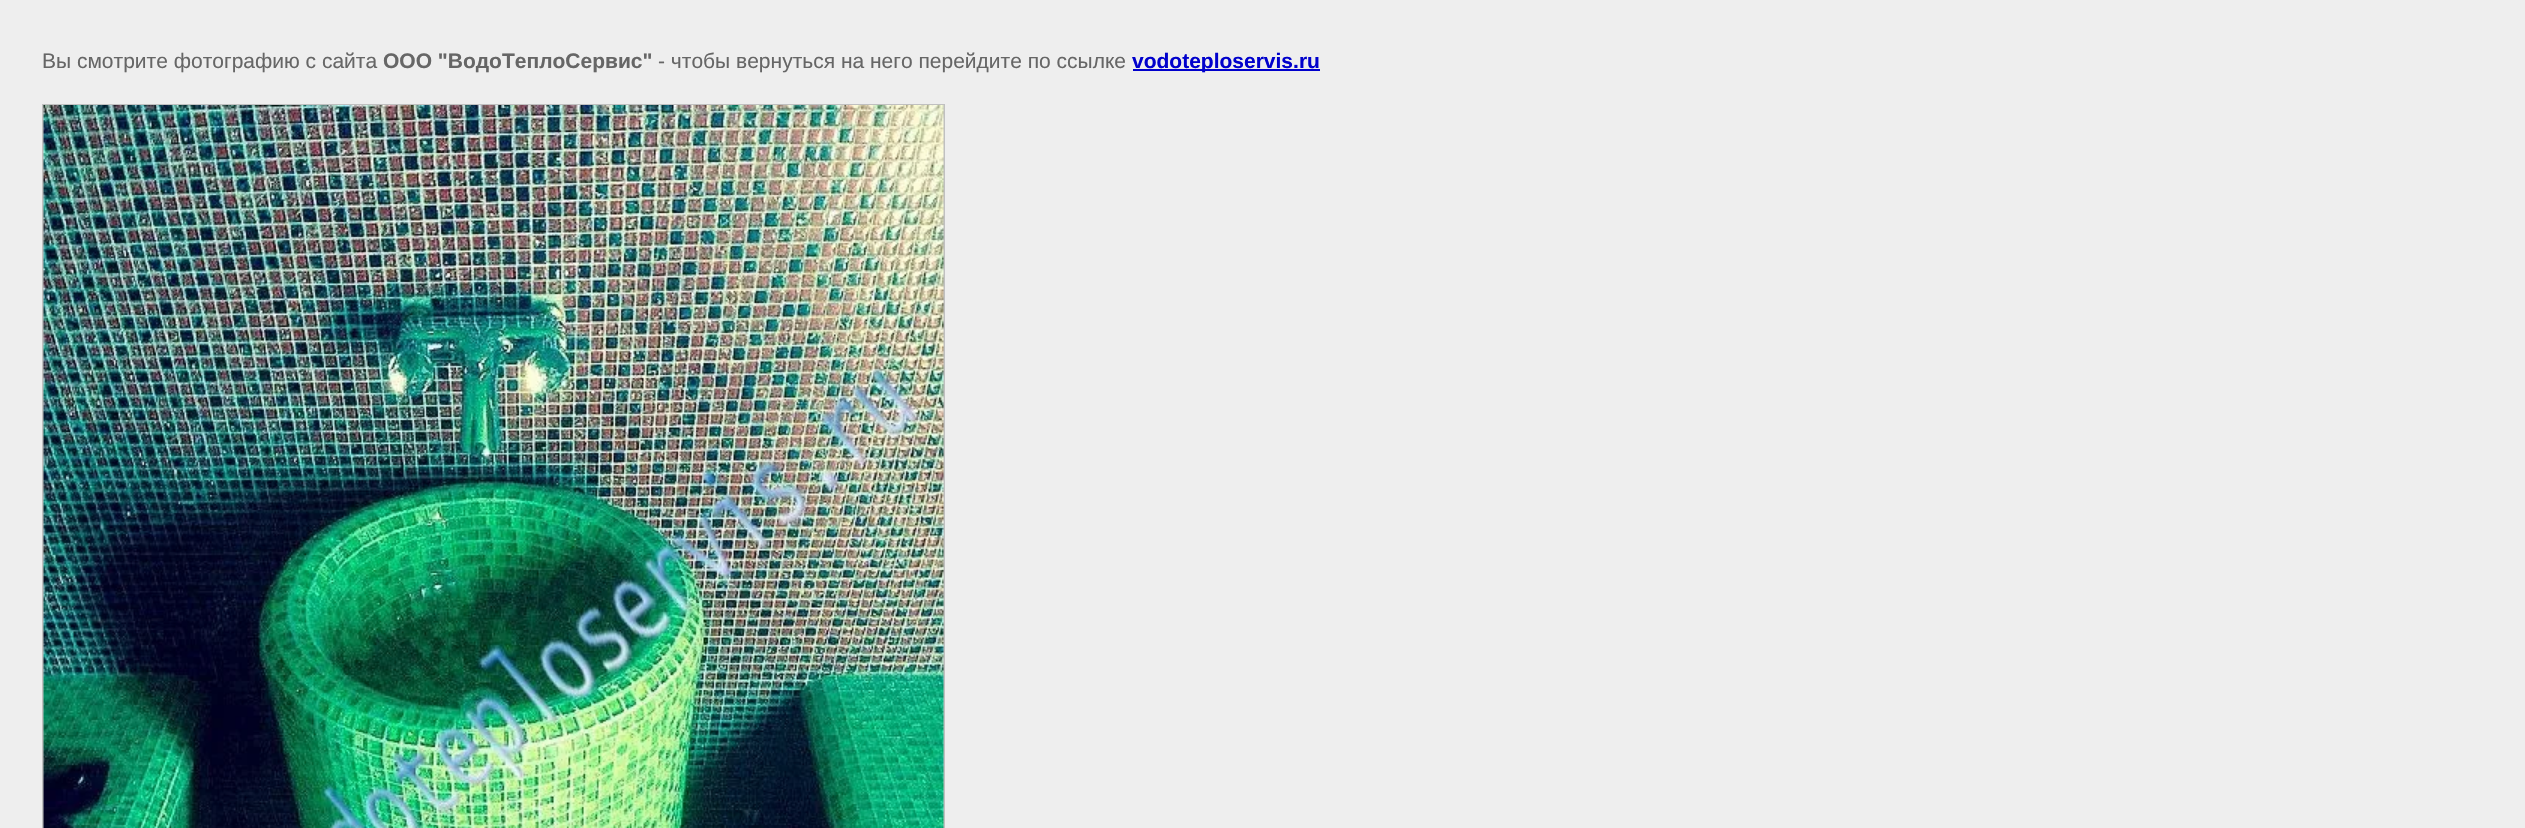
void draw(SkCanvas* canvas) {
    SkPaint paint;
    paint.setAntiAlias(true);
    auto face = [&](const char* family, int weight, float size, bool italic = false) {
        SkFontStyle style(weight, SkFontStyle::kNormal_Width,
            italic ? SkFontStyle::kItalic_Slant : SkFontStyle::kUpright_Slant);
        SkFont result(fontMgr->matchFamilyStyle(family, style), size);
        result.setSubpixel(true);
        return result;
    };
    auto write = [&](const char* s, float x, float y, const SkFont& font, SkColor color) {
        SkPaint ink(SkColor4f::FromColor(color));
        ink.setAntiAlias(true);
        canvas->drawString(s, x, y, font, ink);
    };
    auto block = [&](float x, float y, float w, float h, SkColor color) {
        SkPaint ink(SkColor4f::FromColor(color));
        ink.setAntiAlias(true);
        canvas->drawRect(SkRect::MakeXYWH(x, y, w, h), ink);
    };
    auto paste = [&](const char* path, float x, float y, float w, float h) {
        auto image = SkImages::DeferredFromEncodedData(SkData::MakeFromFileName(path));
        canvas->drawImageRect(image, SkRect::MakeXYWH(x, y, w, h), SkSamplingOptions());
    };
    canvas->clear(SkColorSetRGB(238, 238, 238));
    auto kFont1 = face("Liberation Sans", 400, 21);
    write("Вы смотрите фотографию с сайта", 42, 68, kFont1, SkColorSetRGB(102, 102, 102));
    auto kFont2 = face("Liberation Sans", 700, 21);
    write("ООО \"ВодоТеплоСервис\"", 383, 68, kFont2, SkColorSetRGB(102, 102, 102));
    write("- чтобы вернуться на него перейдите по ссылке", 658, 68, kFont1, SkColorSetRGB(102, 102, 102));
    block(1133, 69, 187, 2, SkColorSetRGB(0, 0, 204));
    write("vodoteploservis.ru", 1132, 68, kFont2, SkColorSetRGB(0, 0, 204));
    paint.setStyle(SkPaint::kStroke_Style);
    paint.setStrokeWidth(2);
    paint.setColor(SkColorSetRGB(192, 192, 192));
    canvas->drawRect(SkRect::MakeXYWH(43, 105, 901, 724), paint);
    paste("pic1.png", 43, 105, 901, 723);
}
